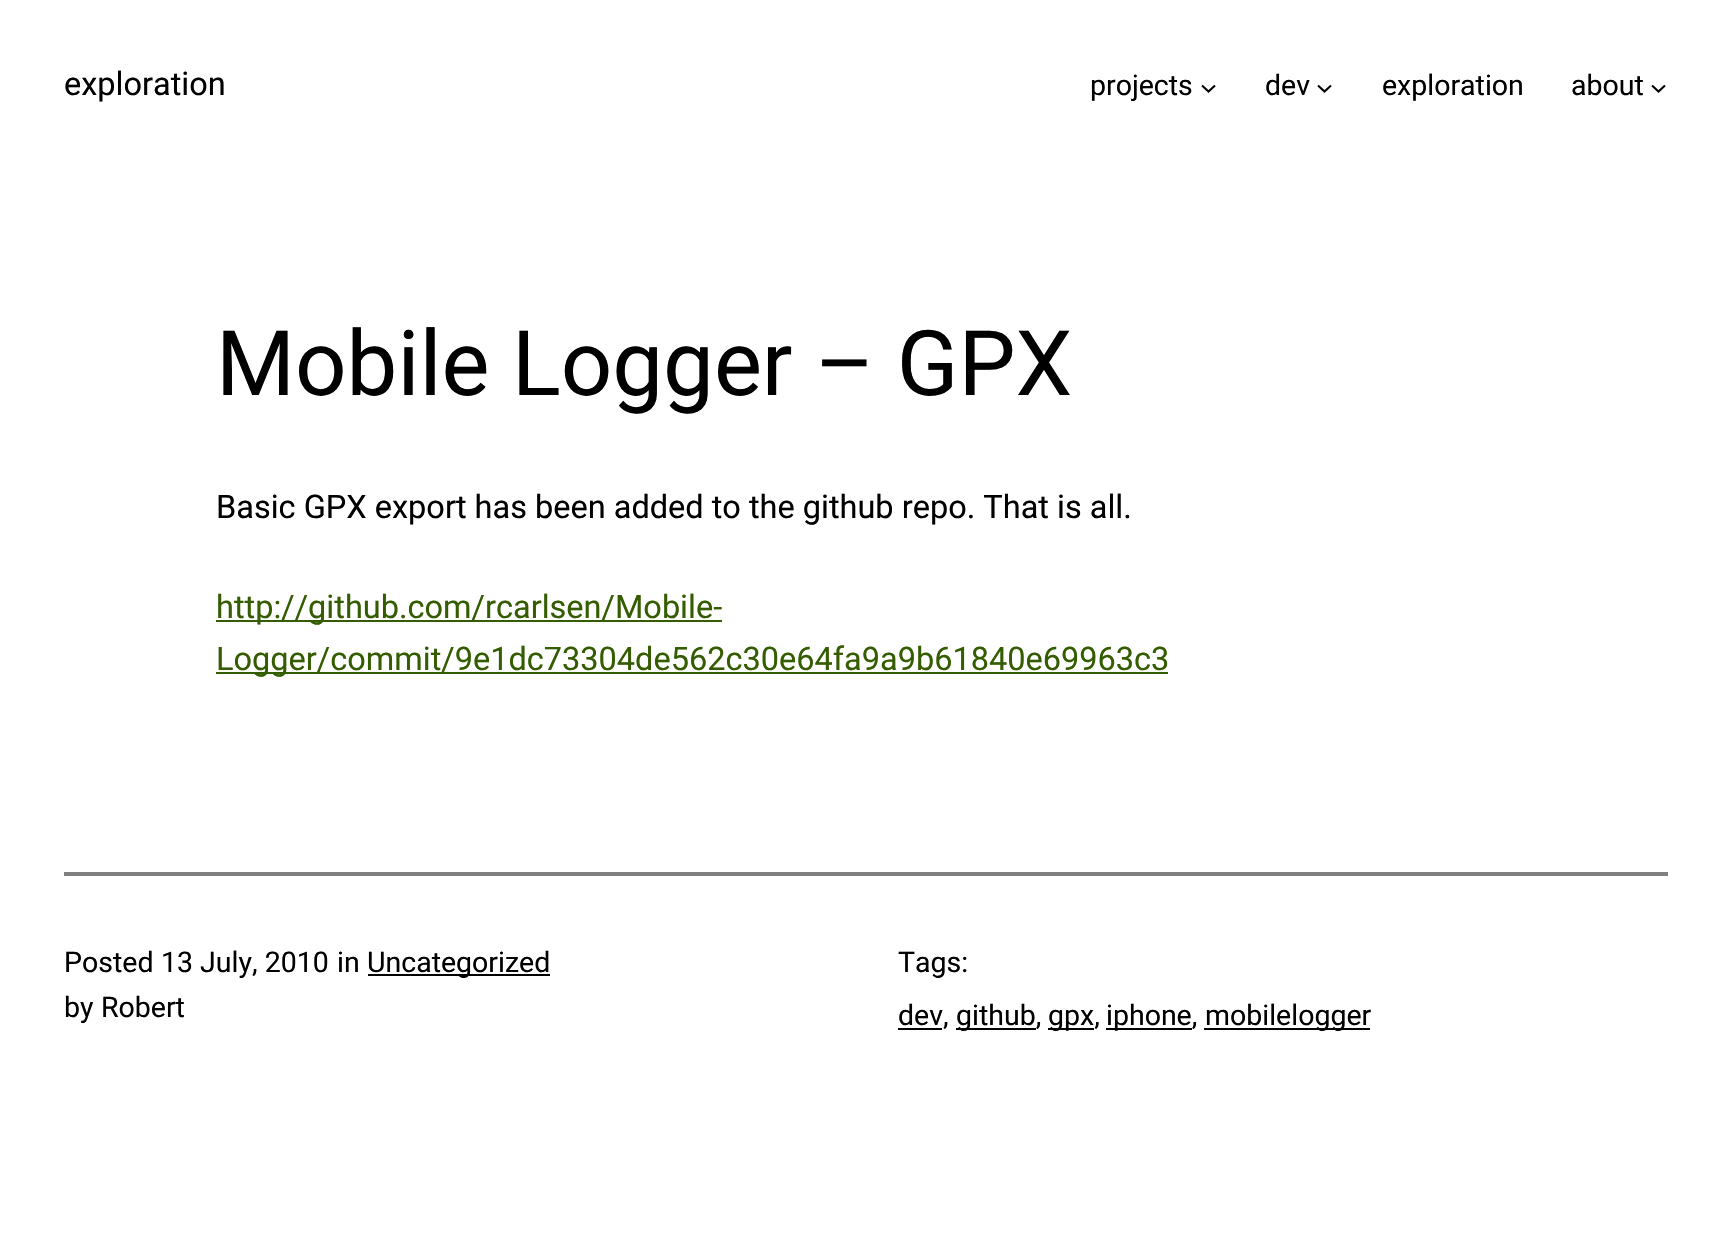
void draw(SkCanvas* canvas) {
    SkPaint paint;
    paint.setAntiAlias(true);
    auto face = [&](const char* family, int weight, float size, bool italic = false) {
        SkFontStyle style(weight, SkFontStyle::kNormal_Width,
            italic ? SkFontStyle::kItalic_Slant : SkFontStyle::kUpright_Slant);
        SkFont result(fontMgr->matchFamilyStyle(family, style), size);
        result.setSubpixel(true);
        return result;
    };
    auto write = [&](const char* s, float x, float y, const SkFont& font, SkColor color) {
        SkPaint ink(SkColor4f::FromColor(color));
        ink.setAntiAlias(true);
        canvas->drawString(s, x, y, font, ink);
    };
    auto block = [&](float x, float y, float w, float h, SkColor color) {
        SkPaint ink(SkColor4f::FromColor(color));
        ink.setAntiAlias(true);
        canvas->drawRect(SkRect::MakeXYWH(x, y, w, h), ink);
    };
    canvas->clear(SK_ColorWHITE);
    auto kFont1 = face("Roboto", 400, 32.5f);
    write("exploration", 64, 95, kFont1, SK_ColorBLACK);
    auto kFont2 = face("Roboto", 400, 28.5f);
    write("projects", 1090, 95, kFont2, SK_ColorBLACK);
    paint.setStyle(SkPaint::kStroke_Style);
    paint.setStrokeWidth(2.1f);
    paint.setColor(SK_ColorBLACK);
    canvas->drawPath(SkPathBuilder().moveTo(1202, 85.5f).lineTo(1208.5f, 91.5f).lineTo(1215, 85.5f).detach(), paint);
    write("dev", 1265, 95, kFont2, SK_ColorBLACK);
    canvas->drawPath(SkPathBuilder().moveTo(1318, 85.5f).lineTo(1324.5f, 91.5f).lineTo(1331, 85.5f).detach(), paint);
    write("exploration", 1382, 95, kFont2, SK_ColorBLACK);
    write("about", 1571, 95, kFont2, SK_ColorBLACK);
    canvas->drawPath(SkPathBuilder().moveTo(1652, 85.5f).lineTo(1658.5f, 91.5f).lineTo(1665, 85.5f).detach(), paint);
    auto kFont3 = face("Roboto", 400, 90.5f);
    write("Mobile Logger – GPX", 216, 395, kFont3, SK_ColorBLACK);
    write("Basic GPX export has been added to the github repo. That is all.", 216, 518, kFont1, SK_ColorBLACK);
    block(216, 620, 506, 2, SkColorSetRGB(52, 92, 0));
    write("http://github.com/rcarlsen/Mobile-", 216, 618, kFont1, SkColorSetRGB(52, 92, 0));
    block(216, 672, 952, 2, SkColorSetRGB(52, 92, 0));
    write("Logger/commit/9e1dc73304de562c30e64fa9a9b61840e69963c3", 216, 670, kFont1, SkColorSetRGB(52, 92, 0));
    block(64, 872, 1604, 4, SkColorSetRGB(128, 128, 128));
    write("Posted", 64, 972, kFont2, SK_ColorBLACK);
    write("13 July, 2010", 161, 972, kFont2, SK_ColorBLACK);
    write("in", 337, 972, kFont2, SK_ColorBLACK);
    block(368, 974, 182, 2, SK_ColorBLACK);
    write("Uncategorized", 367, 972, kFont2, SK_ColorBLACK);
    write("by", 64, 1017, kFont2, SK_ColorBLACK);
    write("Robert", 101, 1017, kFont2, SK_ColorBLACK);
    write("Tags:", 898, 972, kFont2, SK_ColorBLACK);
    block(898, 1028, 44, 2, SK_ColorBLACK);
    write("dev,", 898, 1025, kFont2, SK_ColorBLACK);
    block(956, 1028, 80, 2, SK_ColorBLACK);
    write("github,", 956, 1025, kFont2, SK_ColorBLACK);
    block(1048, 1028, 46, 2, SK_ColorBLACK);
    write("gpx,", 1048, 1025, kFont2, SK_ColorBLACK);
    block(1106, 1028, 86, 2, SK_ColorBLACK);
    write("iphone,", 1106, 1025, kFont2, SK_ColorBLACK);
    block(1204, 1028, 166, 2, SK_ColorBLACK);
    write("mobilelogger", 1205, 1025, kFont2, SK_ColorBLACK);
}
